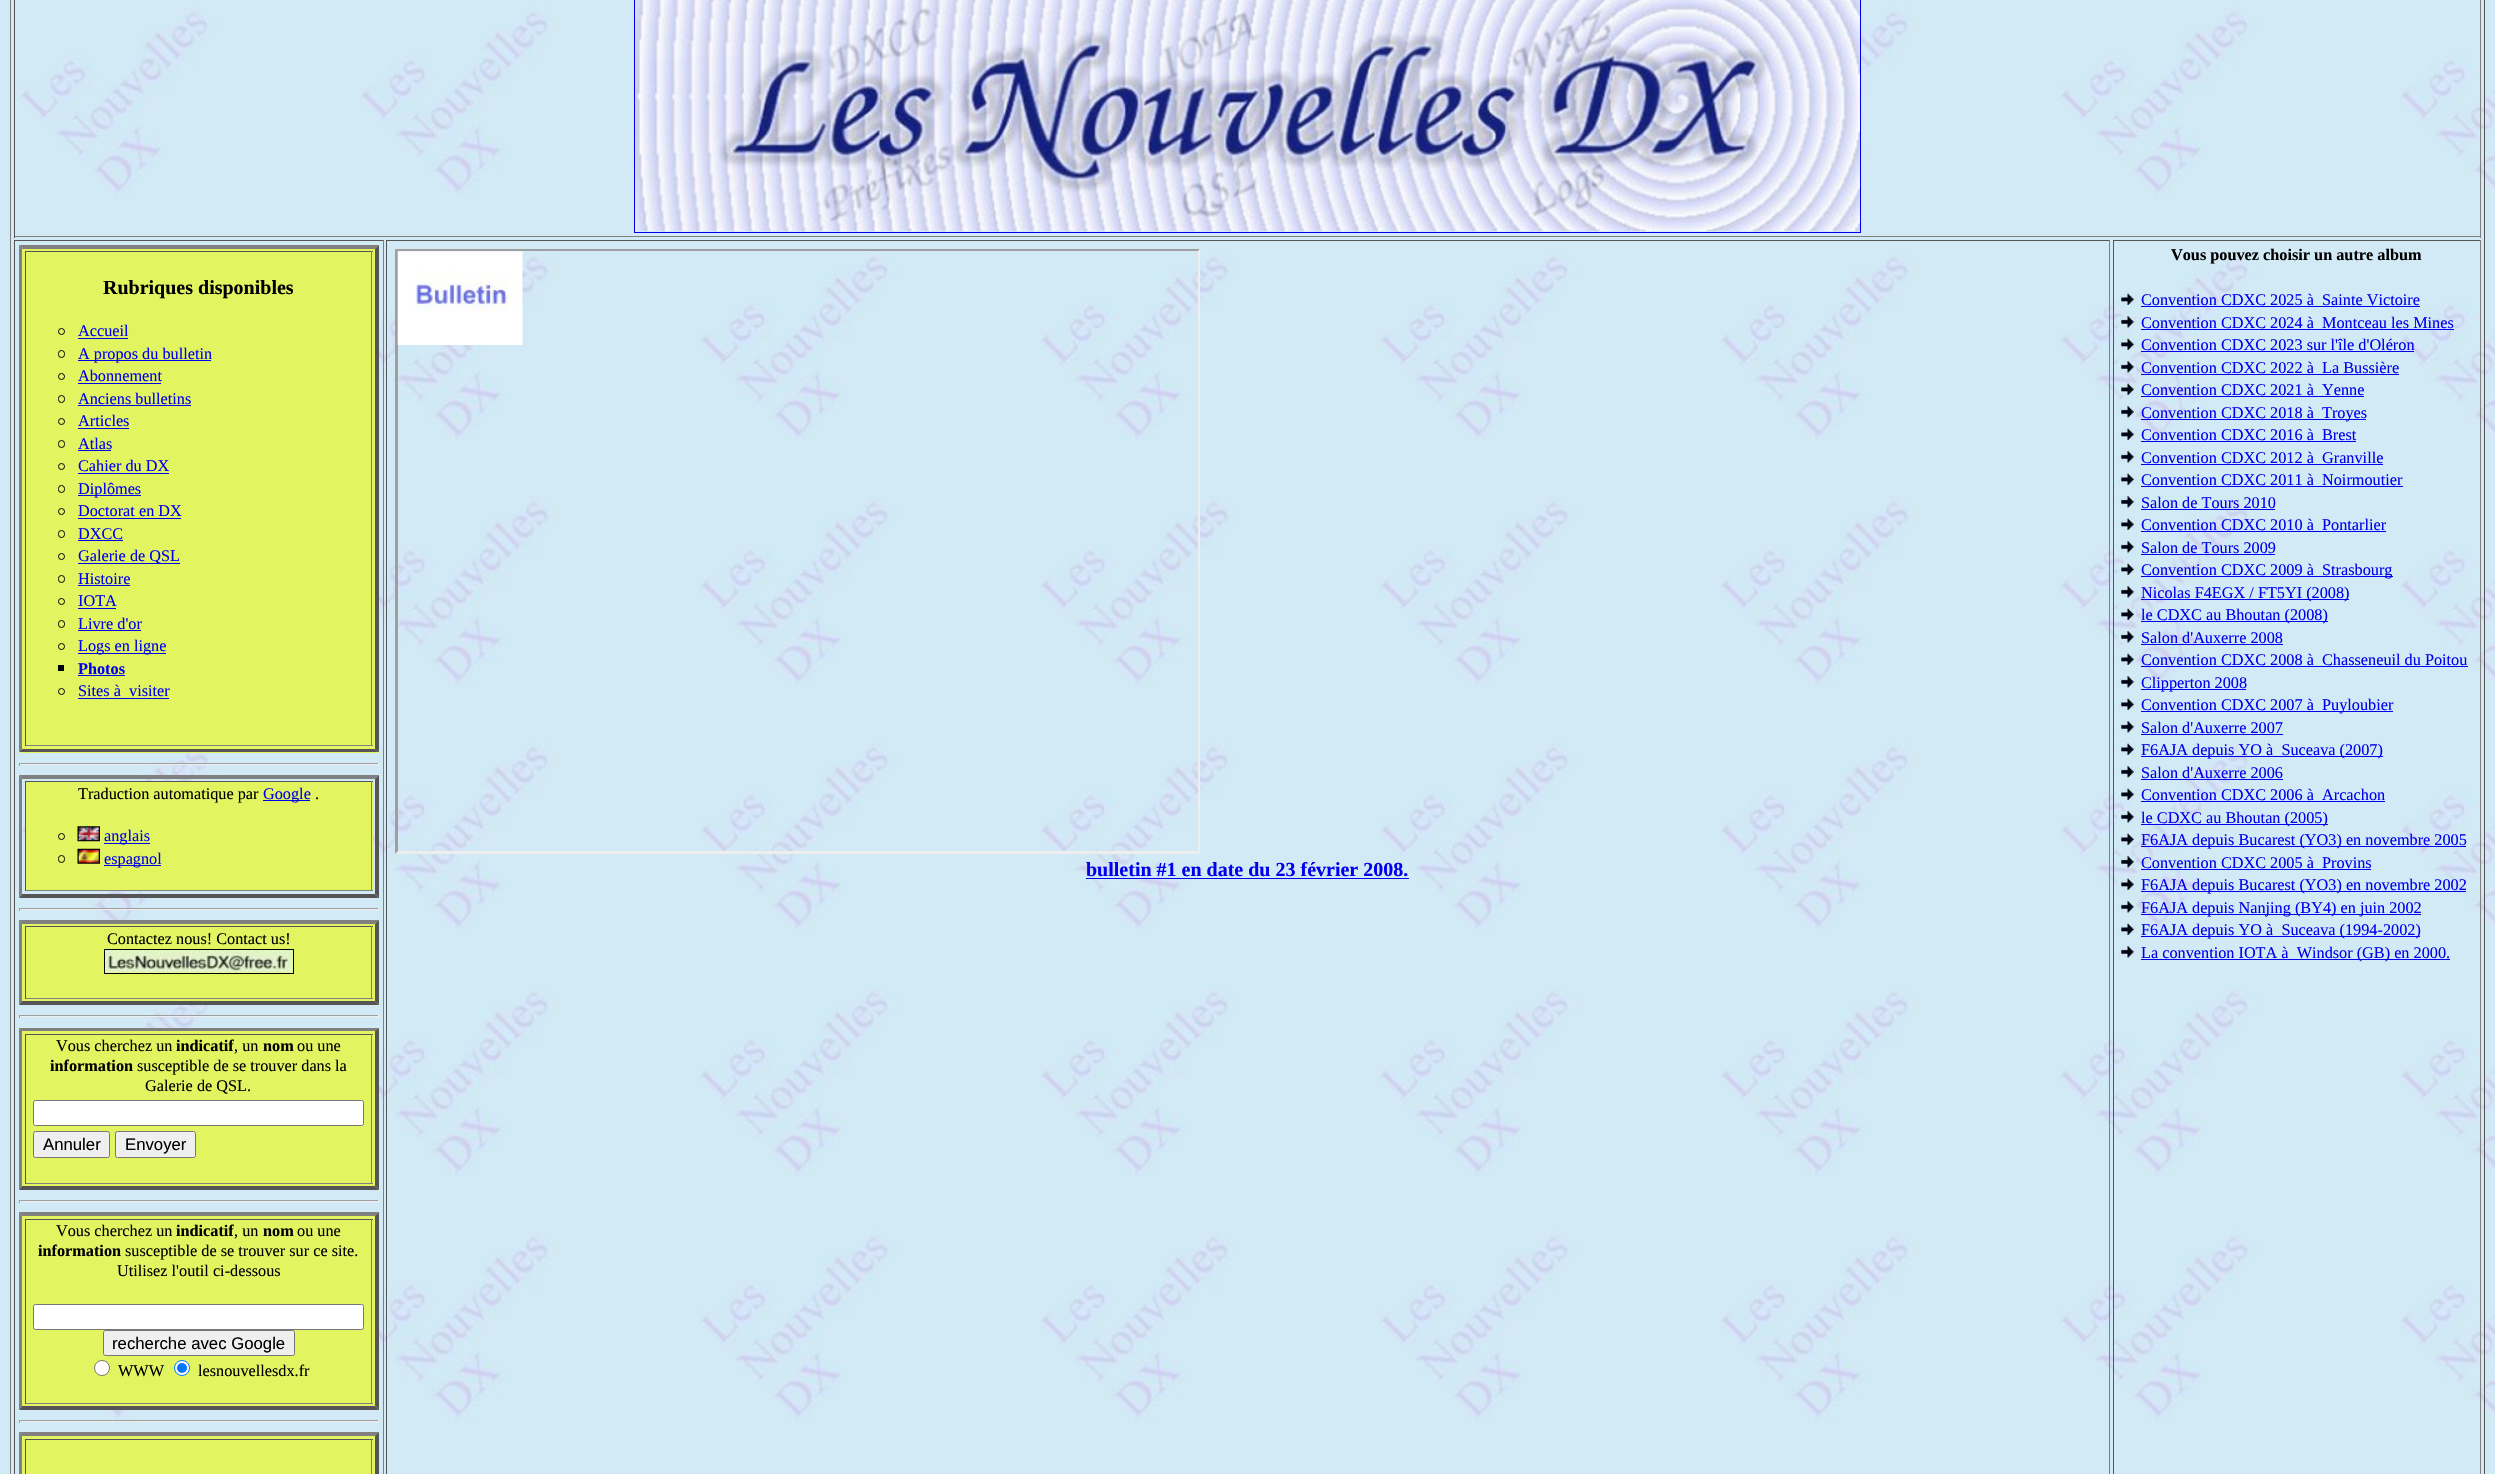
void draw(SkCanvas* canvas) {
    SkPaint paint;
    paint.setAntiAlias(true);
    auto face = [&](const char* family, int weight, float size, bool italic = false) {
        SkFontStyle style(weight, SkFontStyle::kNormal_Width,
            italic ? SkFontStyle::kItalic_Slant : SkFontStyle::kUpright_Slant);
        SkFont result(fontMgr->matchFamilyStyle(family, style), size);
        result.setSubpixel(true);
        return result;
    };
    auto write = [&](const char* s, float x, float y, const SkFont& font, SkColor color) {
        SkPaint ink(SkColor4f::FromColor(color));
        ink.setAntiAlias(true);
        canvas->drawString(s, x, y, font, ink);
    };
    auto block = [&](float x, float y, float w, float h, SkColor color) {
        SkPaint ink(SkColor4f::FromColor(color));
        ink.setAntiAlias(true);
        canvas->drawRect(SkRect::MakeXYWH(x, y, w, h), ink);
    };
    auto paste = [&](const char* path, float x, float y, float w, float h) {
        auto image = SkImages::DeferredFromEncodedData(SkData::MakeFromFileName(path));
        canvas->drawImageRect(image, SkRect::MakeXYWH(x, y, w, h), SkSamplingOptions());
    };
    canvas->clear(SK_ColorWHITE);
    paste("pic1.png", 0, 0, 2495, 1474);
    block(2484, 0, 1, 1474, SkColorSetRGB(85, 85, 85));
    block(10, 0, 1, 1474, SkColorSetRGB(128, 128, 128));
    block(2480, 0, 1, 238, SkColorSetRGB(128, 128, 128));
    block(14, 236, 2467, 1, SkColorSetRGB(128, 128, 128));
    block(14, 0, 1, 238, SkColorSetRGB(85, 85, 85));
    paint.setStyle(SkPaint::kStroke_Style);
    paint.setStrokeWidth(1);
    paint.setColor(SkColorSetRGB(0, 0, 238));
    canvas->drawRect(SkRect::MakeXYWH(634.5f, -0.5f, 1226, 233), paint);
    paste("pic2.png", 635, 0, 1225, 232);
    block(14, 240, 370, 1, SkColorSetRGB(85, 85, 85));
    block(383, 240, 1, 1234, SkColorSetRGB(128, 128, 128));
    block(14, 240, 1, 1234, SkColorSetRGB(85, 85, 85));
    block(19, 245, 360, 508, SkColorSetRGB(227, 244, 97));
    paint.setStyle(SkPaint::kFill_Style);
    paint.setColor(SkColorSetRGB(128, 128, 128));
    canvas->drawPath(SkPathBuilder().moveTo(19, 245).lineTo(379, 245).lineTo(375, 249).lineTo(22, 249).close().detach(), paint);
    paint.setColor(SkColorSetRGB(85, 85, 85));
    canvas->drawPath(SkPathBuilder().moveTo(379, 245).lineTo(379, 752).lineTo(375, 749).lineTo(375, 249).close().detach(), paint);
    canvas->drawPath(SkPathBuilder().moveTo(379, 752).lineTo(19, 752).lineTo(22, 749).lineTo(375, 749).close().detach(), paint);
    paint.setColor(SkColorSetRGB(128, 128, 128));
    canvas->drawPath(SkPathBuilder().moveTo(19, 752).lineTo(19, 245).lineTo(22, 249).lineTo(22, 749).close().detach(), paint);
    block(25, 251, 348, 1, SkColorSetRGB(85, 85, 85));
    block(371, 251, 1, 495, SkColorSetRGB(128, 128, 128));
    block(25, 745, 348, 1, SkColorSetRGB(128, 128, 128));
    block(25, 251, 1, 495, SkColorSetRGB(85, 85, 85));
    auto kFont1 = face("Liberation Serif", 700, 20);
    write("Rubriques disponibles", 103, 294, kFont1, SK_ColorBLACK);
    paint.setStyle(SkPaint::kStroke_Style);
    paint.setColor(SK_ColorBLACK);
    canvas->drawCircle(61.5f, 331.5f, 3, paint);
    auto kFont2 = face("Liberation Serif", 400, 16.25f);
    write("Accueil", 78, 336, kFont2, SkColorSetRGB(0, 0, 238));
    block(78, 338, 50, 1, SkColorSetRGB(0, 0, 238));
    canvas->drawRoundRect(SkRect::MakeXYWH(58.5f, 350.5f, 6, 7), 3, 3, paint);
    block(78, 360, 133, 1, SkColorSetRGB(0, 0, 238));
    write("A propos du bulletin", 78, 359, kFont2, SkColorSetRGB(0, 0, 238));
    canvas->drawCircle(61.5f, 376.5f, 3, paint);
    write("Abonnement", 78, 381, kFont2, SkColorSetRGB(0, 0, 238));
    block(78, 383, 83, 1, SkColorSetRGB(0, 0, 238));
    canvas->drawRoundRect(SkRect::MakeXYWH(58.5f, 395.5f, 6, 7), 3, 3, paint);
    write("Anciens bulletins", 78, 404, kFont2, SkColorSetRGB(0, 0, 238));
    block(78, 405, 113, 1, SkColorSetRGB(0, 0, 238));
    canvas->drawCircle(61.5f, 421.5f, 3, paint);
    write("Articles", 78, 426, kFont2, SkColorSetRGB(0, 0, 238));
    block(78, 428, 51, 1, SkColorSetRGB(0, 0, 238));
    canvas->drawRoundRect(SkRect::MakeXYWH(58.5f, 440.5f, 6, 7), 3, 3, paint);
    write("Atlas", 78, 449, kFont2, SkColorSetRGB(0, 0, 238));
    block(78, 450, 33, 1, SkColorSetRGB(0, 0, 238));
    canvas->drawCircle(61.5f, 466.5f, 3, paint);
    write("Cahier du DX", 78, 471, kFont2, SkColorSetRGB(0, 0, 238));
    block(78, 473, 91, 1, SkColorSetRGB(0, 0, 238));
    canvas->drawRoundRect(SkRect::MakeXYWH(58.5f, 485.5f, 6, 7), 3, 3, paint);
    block(78, 495, 63, 1, SkColorSetRGB(0, 0, 238));
    write("Diplômes", 78, 494, kFont2, SkColorSetRGB(0, 0, 238));
    canvas->drawCircle(61.5f, 511.5f, 3, paint);
    write("Doctorat en DX", 78, 516, kFont2, SkColorSetRGB(0, 0, 238));
    block(78, 518, 103, 1, SkColorSetRGB(0, 0, 238));
    canvas->drawRoundRect(SkRect::MakeXYWH(58.5f, 530.5f, 6, 7), 3, 3, paint);
    write("DXCC", 78, 539, kFont2, SkColorSetRGB(0, 0, 238));
    block(78, 540, 45, 1, SkColorSetRGB(0, 0, 238));
    canvas->drawCircle(61.5f, 556.5f, 3, paint);
    block(78, 563, 102, 1, SkColorSetRGB(0, 0, 238));
    write("Galerie de QSL", 78, 561, kFont2, SkColorSetRGB(0, 0, 238));
    canvas->drawRoundRect(SkRect::MakeXYWH(58.5f, 575.5f, 6, 7), 3, 3, paint);
    write("Histoire", 78, 584, kFont2, SkColorSetRGB(0, 0, 238));
    block(78, 585, 52, 1, SkColorSetRGB(0, 0, 238));
    canvas->drawCircle(61.5f, 601.5f, 3, paint);
    write("IOTA", 78, 606, kFont2, SkColorSetRGB(0, 0, 238));
    block(78, 608, 38, 1, SkColorSetRGB(0, 0, 238));
    canvas->drawRoundRect(SkRect::MakeXYWH(58.5f, 620.5f, 6, 7), 3, 3, paint);
    write("Livre d'or", 78, 629, kFont2, SkColorSetRGB(0, 0, 238));
    block(78, 630, 63, 1, SkColorSetRGB(0, 0, 238));
    canvas->drawCircle(61.5f, 646.5f, 3, paint);
    block(78, 653, 88, 1, SkColorSetRGB(0, 0, 238));
    write("Logs en ligne", 78, 651, kFont2, SkColorSetRGB(0, 0, 238));
    block(58, 665, 6, 6, SK_ColorBLACK);
    auto kFont3 = face("Liberation Serif", 700, 16.25f);
    write("Photos", 78, 674, kFont3, SkColorSetRGB(0, 0, 238));
    block(78, 675, 47, 1, SkColorSetRGB(0, 0, 238));
    canvas->drawCircle(61.5f, 691.5f, 3, paint);
    write("Sites à  visiter", 78, 696, kFont2, SkColorSetRGB(0, 0, 238));
    block(78, 698, 91, 1, SkColorSetRGB(0, 0, 238));
    block(19, 763, 360, 1, SkColorSetRGB(159, 159, 159));
    block(378, 763, 1, 3, SkColorSetRGB(238, 238, 238));
    block(19, 764, 360, 1, SkColorSetRGB(238, 238, 238));
    block(19, 763, 1, 3, SkColorSetRGB(159, 159, 159));
    paint.setStyle(SkPaint::kFill_Style);
    paint.setColor(SkColorSetRGB(128, 128, 128));
    canvas->drawPath(SkPathBuilder().moveTo(19, 775).lineTo(379, 775).lineTo(375, 779).lineTo(22, 779).close().detach(), paint);
    paint.setColor(SkColorSetRGB(85, 85, 85));
    canvas->drawPath(SkPathBuilder().moveTo(379, 775).lineTo(379, 898).lineTo(375, 894).lineTo(375, 779).close().detach(), paint);
    canvas->drawPath(SkPathBuilder().moveTo(379, 898).lineTo(19, 898).lineTo(22, 894).lineTo(375, 894).close().detach(), paint);
    paint.setColor(SkColorSetRGB(128, 128, 128));
    canvas->drawPath(SkPathBuilder().moveTo(19, 898).lineTo(19, 775).lineTo(22, 779).lineTo(22, 894).close().detach(), paint);
    block(26, 782, 347, 108, SkColorSetRGB(227, 244, 97));
    block(25, 781, 348, 1, SkColorSetRGB(85, 85, 85));
    block(371, 781, 1, 110, SkColorSetRGB(128, 128, 128));
    block(25, 890, 348, 1, SkColorSetRGB(128, 128, 128));
    block(25, 781, 1, 110, SkColorSetRGB(85, 85, 85));
    write("Traduction automatique par", 78, 799, kFont2, SK_ColorBLACK);
    block(263, 800, 47, 1, SkColorSetRGB(0, 0, 238));
    write("Google", 263, 799, kFont2, SkColorSetRGB(0, 0, 238));
    write(".", 315, 799, kFont2, SK_ColorBLACK);
    paint.setStyle(SkPaint::kStroke_Style);
    paint.setColor(SK_ColorBLACK);
    canvas->drawCircle(61.5f, 836.5f, 3, paint);
    paste("pic3.png", 77, 826, 23, 16);
    block(104, 843, 46, 1, SkColorSetRGB(0, 0, 238));
    write("anglais", 104, 841, kFont2, SkColorSetRGB(0, 0, 238));
    canvas->drawRoundRect(SkRect::MakeXYWH(58.5f, 855.5f, 6, 7), 3, 3, paint);
    paste("pic4.png", 77, 848, 23, 16);
    block(104, 865, 57, 1, SkColorSetRGB(0, 0, 238));
    write("espagnol", 104, 864, kFont2, SkColorSetRGB(0, 0, 238));
    block(19, 908, 360, 1, SkColorSetRGB(159, 159, 159));
    block(378, 908, 1, 3, SkColorSetRGB(238, 238, 238));
    block(19, 909, 360, 1, SkColorSetRGB(238, 238, 238));
    block(19, 908, 1, 3, SkColorSetRGB(159, 159, 159));
    block(19, 920, 360, 85, SkColorSetRGB(227, 244, 97));
    paint.setStyle(SkPaint::kFill_Style);
    paint.setColor(SkColorSetRGB(128, 128, 128));
    canvas->drawPath(SkPathBuilder().moveTo(19, 920).lineTo(379, 920).lineTo(375, 924).lineTo(22, 924).close().detach(), paint);
    paint.setColor(SkColorSetRGB(85, 85, 85));
    canvas->drawPath(SkPathBuilder().moveTo(379, 920).lineTo(379, 1005).lineTo(375, 1001).lineTo(375, 924).close().detach(), paint);
    canvas->drawPath(SkPathBuilder().moveTo(379, 1005).lineTo(19, 1005).lineTo(22, 1001).lineTo(375, 1001).close().detach(), paint);
    paint.setColor(SkColorSetRGB(128, 128, 128));
    canvas->drawPath(SkPathBuilder().moveTo(19, 1005).lineTo(19, 920).lineTo(22, 924).lineTo(22, 1001).close().detach(), paint);
    block(25, 926, 348, 1, SkColorSetRGB(85, 85, 85));
    block(371, 926, 1, 73, SkColorSetRGB(128, 128, 128));
    block(25, 998, 348, 1, SkColorSetRGB(128, 128, 128));
    block(25, 926, 1, 73, SkColorSetRGB(85, 85, 85));
    write("Contactez nous! Contact us!", 107, 944, kFont2, SK_ColorBLACK);
    paint.setStyle(SkPaint::kStroke_Style);
    paint.setColor(SK_ColorBLACK);
    canvas->drawRect(SkRect::MakeXYWH(104.5f, 949.5f, 189, 24), paint);
    paste("pic5.png", 105, 950, 188, 23);
    block(19, 1015, 360, 1, SkColorSetRGB(159, 159, 159));
    block(378, 1015, 1, 3, SkColorSetRGB(238, 238, 238));
    block(19, 1016, 360, 1, SkColorSetRGB(238, 238, 238));
    block(19, 1015, 1, 3, SkColorSetRGB(159, 159, 159));
    block(19, 1028, 360, 162, SkColorSetRGB(227, 244, 97));
    paint.setStyle(SkPaint::kFill_Style);
    paint.setColor(SkColorSetRGB(128, 128, 128));
    canvas->drawPath(SkPathBuilder().moveTo(19, 1028).lineTo(379, 1028).lineTo(375, 1031).lineTo(22, 1031).close().detach(), paint);
    paint.setColor(SkColorSetRGB(85, 85, 85));
    canvas->drawPath(SkPathBuilder().moveTo(379, 1028).lineTo(379, 1190).lineTo(375, 1186).lineTo(375, 1031).close().detach(), paint);
    canvas->drawPath(SkPathBuilder().moveTo(379, 1190).lineTo(19, 1190).lineTo(22, 1186).lineTo(375, 1186).close().detach(), paint);
    paint.setColor(SkColorSetRGB(128, 128, 128));
    canvas->drawPath(SkPathBuilder().moveTo(19, 1190).lineTo(19, 1028).lineTo(22, 1031).lineTo(22, 1186).close().detach(), paint);
    block(25, 1034, 348, 1, SkColorSetRGB(85, 85, 85));
    block(371, 1034, 1, 150, SkColorSetRGB(128, 128, 128));
    block(25, 1183, 348, 1, SkColorSetRGB(128, 128, 128));
    block(25, 1034, 1, 150, SkColorSetRGB(85, 85, 85));
    write("Vous cherchez un", 56, 1051, kFont2, SK_ColorBLACK);
    write("indicatif", 176, 1051, kFont3, SK_ColorBLACK);
    write(", un", 234, 1051, kFont2, SK_ColorBLACK);
    write("nom", 263, 1051, kFont3, SK_ColorBLACK);
    write("ou une", 297, 1051, kFont2, SK_ColorBLACK);
    write("information", 50, 1071, kFont3, SK_ColorBLACK);
    write("susceptible de se trouver dans la", 137, 1071, kFont2, SK_ColorBLACK);
    write("Galerie de QSL.", 145, 1091, kFont2, SK_ColorBLACK);
    paint.setColor(SK_ColorWHITE);
    canvas->drawRoundRect(SkRect::MakeXYWH(33.5f, 1100.5f, 330, 25), 2, 2, paint);
    paint.setStyle(SkPaint::kStroke_Style);
    paint.setColor(SkColorSetRGB(118, 118, 118));
    canvas->drawRoundRect(SkRect::MakeXYWH(33.5f, 1100.5f, 330, 25), 2, 2, paint);
    paint.setStyle(SkPaint::kFill_Style);
    paint.setColor(SkColorSetRGB(239, 239, 239));
    canvas->drawRoundRect(SkRect::MakeXYWH(33.5f, 1131.5f, 76, 26), 2, 2, paint);
    paint.setStyle(SkPaint::kStroke_Style);
    paint.setColor(SkColorSetRGB(118, 118, 118));
    canvas->drawRoundRect(SkRect::MakeXYWH(33.5f, 1131.5f, 76, 26), 2, 2, paint);
    auto kFont4 = face("Liberation Sans", 400, 16.75f);
    write("Annuler", 43, 1150, kFont4, SK_ColorBLACK);
    paint.setStyle(SkPaint::kFill_Style);
    paint.setColor(SkColorSetRGB(239, 239, 239));
    canvas->drawRoundRect(SkRect::MakeXYWH(115.5f, 1131.5f, 80, 26), 2, 2, paint);
    paint.setStyle(SkPaint::kStroke_Style);
    paint.setColor(SkColorSetRGB(118, 118, 118));
    canvas->drawRoundRect(SkRect::MakeXYWH(115.5f, 1131.5f, 80, 26), 2, 2, paint);
    write("Envoyer", 125, 1150, kFont4, SK_ColorBLACK);
    block(19, 1200, 360, 1, SkColorSetRGB(159, 159, 159));
    block(378, 1200, 1, 3, SkColorSetRGB(238, 238, 238));
    block(19, 1201, 360, 1, SkColorSetRGB(238, 238, 238));
    block(19, 1200, 1, 3, SkColorSetRGB(159, 159, 159));
    block(19, 1213, 360, 197, SkColorSetRGB(227, 244, 97));
    paint.setStyle(SkPaint::kFill_Style);
    paint.setColor(SkColorSetRGB(128, 128, 128));
    canvas->drawPath(SkPathBuilder().moveTo(19, 1212).lineTo(379, 1212).lineTo(375, 1216).lineTo(22, 1216).close().detach(), paint);
    paint.setColor(SkColorSetRGB(85, 85, 85));
    canvas->drawPath(SkPathBuilder().moveTo(379, 1212).lineTo(379, 1410).lineTo(375, 1406).lineTo(375, 1216).close().detach(), paint);
    canvas->drawPath(SkPathBuilder().moveTo(379, 1410).lineTo(19, 1410).lineTo(22, 1406).lineTo(375, 1406).close().detach(), paint);
    paint.setColor(SkColorSetRGB(128, 128, 128));
    canvas->drawPath(SkPathBuilder().moveTo(19, 1410).lineTo(19, 1212).lineTo(22, 1216).lineTo(22, 1406).close().detach(), paint);
    block(25, 1219, 348, 1, SkColorSetRGB(85, 85, 85));
    block(371, 1219, 1, 185, SkColorSetRGB(128, 128, 128));
    block(25, 1403, 348, 1, SkColorSetRGB(128, 128, 128));
    block(25, 1219, 1, 185, SkColorSetRGB(85, 85, 85));
    write("Vous cherchez un", 56, 1236, kFont2, SK_ColorBLACK);
    write("indicatif", 176, 1236, kFont3, SK_ColorBLACK);
    write(", un", 234, 1236, kFont2, SK_ColorBLACK);
    write("nom", 263, 1236, kFont3, SK_ColorBLACK);
    write("ou une", 297, 1236, kFont2, SK_ColorBLACK);
    write("information", 38, 1256, kFont3, SK_ColorBLACK);
    write("susceptible de se trouver sur ce site.", 125, 1256, kFont2, SK_ColorBLACK);
    write("Utilisez l'outil ci-dessous", 117, 1276, kFont2, SK_ColorBLACK);
    paint.setColor(SK_ColorWHITE);
    canvas->drawRoundRect(SkRect::MakeXYWH(33.5f, 1304.5f, 330, 25), 2, 2, paint);
    paint.setStyle(SkPaint::kStroke_Style);
    paint.setColor(SkColorSetRGB(118, 118, 118));
    canvas->drawRoundRect(SkRect::MakeXYWH(33.5f, 1304.5f, 330, 25), 2, 2, paint);
    paint.setStyle(SkPaint::kFill_Style);
    paint.setColor(SkColorSetRGB(239, 239, 239));
    canvas->drawRoundRect(SkRect::MakeXYWH(103.5f, 1330.5f, 191, 25), 2, 2, paint);
    paint.setStyle(SkPaint::kStroke_Style);
    paint.setColor(SkColorSetRGB(118, 118, 118));
    canvas->drawRoundRect(SkRect::MakeXYWH(103.5f, 1330.5f, 191, 25), 2, 2, paint);
    write("recherche avec Google", 112, 1349, kFont4, SK_ColorBLACK);
    paint.setStyle(SkPaint::kFill_Style);
    paint.setColor(SK_ColorWHITE);
    canvas->drawCircle(102, 1368, 7.5f, paint);
    paint.setStyle(SkPaint::kStroke_Style);
    paint.setColor(SkColorSetRGB(118, 118, 118));
    canvas->drawCircle(102, 1368, 7.5f, paint);
    write("WWW", 118, 1376, kFont2, SK_ColorBLACK);
    paint.setStyle(SkPaint::kFill_Style);
    paint.setColor(SK_ColorWHITE);
    canvas->drawCircle(182, 1368, 7.5f, paint);
    paint.setStyle(SkPaint::kStroke_Style);
    paint.setColor(SkColorSetRGB(0, 117, 255));
    canvas->drawCircle(182, 1368, 7.5f, paint);
    paint.setStyle(SkPaint::kFill_Style);
    canvas->drawCircle(182, 1368, 5, paint);
    write("lesnouvellesdx.fr", 198, 1376, kFont2, SK_ColorBLACK);
    block(19, 1420, 360, 1, SkColorSetRGB(159, 159, 159));
    block(378, 1420, 1, 3, SkColorSetRGB(238, 238, 238));
    block(19, 1421, 360, 1, SkColorSetRGB(238, 238, 238));
    block(19, 1420, 1, 3, SkColorSetRGB(159, 159, 159));
    block(19, 1433, 359, 41, SkColorSetRGB(227, 244, 97));
    paint.setColor(SkColorSetRGB(128, 128, 128));
    canvas->drawPath(SkPathBuilder().moveTo(19, 1432).lineTo(379, 1432).lineTo(375, 1436).lineTo(22, 1436).close().detach(), paint);
    paint.setColor(SkColorSetRGB(85, 85, 85));
    canvas->drawPath(SkPathBuilder().moveTo(379, 1432).lineTo(379, 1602).lineTo(375, 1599).lineTo(375, 1436).close().detach(), paint);
    paint.setColor(SkColorSetRGB(128, 128, 128));
    canvas->drawPath(SkPathBuilder().moveTo(19, 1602).lineTo(19, 1432).lineTo(22, 1436).lineTo(22, 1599).close().detach(), paint);
    block(25, 1439, 348, 1, SkColorSetRGB(85, 85, 85));
    block(371, 1439, 1, 35, SkColorSetRGB(128, 128, 128));
    block(25, 1439, 1, 35, SkColorSetRGB(85, 85, 85));
    block(386, 240, 1724, 1, SkColorSetRGB(85, 85, 85));
    block(2109, 240, 1, 1234, SkColorSetRGB(128, 128, 128));
    block(386, 240, 1, 1234, SkColorSetRGB(85, 85, 85));
    paint.setColor(SkColorSetRGB(159, 159, 159));
    canvas->drawPath(SkPathBuilder().moveTo(395, 249).lineTo(1200, 249).lineTo(1198, 251).lineTo(398, 251).close().detach(), paint);
    paint.setColor(SkColorSetRGB(238, 238, 238));
    canvas->drawPath(SkPathBuilder().moveTo(1200, 249).lineTo(1200, 854).lineTo(1198, 851).lineTo(1198, 251).close().detach(), paint);
    canvas->drawPath(SkPathBuilder().moveTo(1200, 854).lineTo(395, 854).lineTo(398, 851).lineTo(1198, 851).close().detach(), paint);
    paint.setColor(SkColorSetRGB(159, 159, 159));
    canvas->drawPath(SkPathBuilder().moveTo(395, 854).lineTo(395, 249).lineTo(398, 251).lineTo(398, 851).close().detach(), paint);
    paste("pic6.png", 397, 251, 126, 94);
    write("bulletin #1 en date du 23 février 2008.", 1086, 876, kFont1, SkColorSetRGB(0, 0, 238));
    block(1086, 878, 323, 1, SkColorSetRGB(0, 0, 238));
    block(2113, 240, 368, 1, SkColorSetRGB(85, 85, 85));
    block(2480, 240, 1, 1234, SkColorSetRGB(128, 128, 128));
    block(2113, 240, 1, 1234, SkColorSetRGB(85, 85, 85));
    write("Vous pouvez choisir un autre album", 2171, 260, kFont3, SK_ColorBLACK);
    paste("pic7.png", 2117, 293, 20, 12);
    write("Convention CDXC 2025 à  Sainte Victoire", 2141, 305, kFont2, SkColorSetRGB(0, 0, 238));
    block(2141, 306, 279, 1, SkColorSetRGB(0, 0, 238));
    paste("pic8.png", 2117, 316, 20, 12);
    write("Convention CDXC 2024 à  Montceau les Mines", 2141, 328, kFont2, SkColorSetRGB(0, 0, 238));
    block(2141, 329, 313, 1, SkColorSetRGB(0, 0, 238));
    paste("pic9.png", 2118, 338, 19, 12);
    write("Convention CDXC 2023 sur l'île d'Oléron", 2141, 350, kFont2, SkColorSetRGB(0, 0, 238));
    block(2141, 351, 273, 1, SkColorSetRGB(0, 0, 238));
    paste("pic10.png", 2117, 361, 20, 12);
    write("Convention CDXC 2022 à  La Bussière", 2141, 373, kFont2, SkColorSetRGB(0, 0, 238));
    block(2141, 374, 258, 1, SkColorSetRGB(0, 0, 238));
    paste("pic11.png", 2117, 383, 20, 12);
    write("Convention CDXC 2021 à  Yenne", 2141, 395, kFont2, SkColorSetRGB(0, 0, 238));
    block(2141, 396, 223, 1, SkColorSetRGB(0, 0, 238));
    paste("pic12.png", 2117, 406, 19, 12);
    block(2141, 419, 225, 1, SkColorSetRGB(0, 0, 238));
    write("Convention CDXC 2018 à  Troyes", 2141, 418, kFont2, SkColorSetRGB(0, 0, 238));
    paste("pic13.png", 2117, 428, 20, 12);
    write("Convention CDXC 2016 à  Brest", 2141, 440, kFont2, SkColorSetRGB(0, 0, 238));
    block(2141, 441, 215, 1, SkColorSetRGB(0, 0, 238));
    paste("pic14.png", 2117, 451, 19, 12);
    write("Convention CDXC 2012 à  Granville", 2141, 463, kFont2, SkColorSetRGB(0, 0, 238));
    block(2141, 464, 242, 1, SkColorSetRGB(0, 0, 238));
    paste("pic13.png", 2117, 473, 20, 12);
    write("Convention CDXC 2011 à  Noirmoutier", 2141, 485, kFont2, SkColorSetRGB(0, 0, 238));
    block(2141, 486, 262, 1, SkColorSetRGB(0, 0, 238));
    paste("pic14.png", 2117, 496, 19, 12);
    write("Salon de Tours 2010", 2141, 508, kFont2, SkColorSetRGB(0, 0, 238));
    block(2141, 509, 134, 1, SkColorSetRGB(0, 0, 238));
    paste("pic13.png", 2117, 518, 20, 12);
    write("Convention CDXC 2010 à  Pontarlier", 2141, 530, kFont2, SkColorSetRGB(0, 0, 238));
    block(2141, 531, 245, 1, SkColorSetRGB(0, 0, 238));
    paste("pic15.png", 2117, 541, 19, 12);
    write("Salon de Tours 2009", 2141, 553, kFont2, SkColorSetRGB(0, 0, 238));
    block(2141, 554, 134, 1, SkColorSetRGB(0, 0, 238));
    paste("pic16.png", 2117, 563, 20, 12);
    block(2141, 576, 252, 1, SkColorSetRGB(0, 0, 238));
    write("Convention CDXC 2009 à  Strasbourg", 2141, 575, kFont2, SkColorSetRGB(0, 0, 238));
    paste("pic17.png", 2117, 586, 19, 12);
    block(2141, 599, 208, 1, SkColorSetRGB(0, 0, 238));
    write("Nicolas F4EGX / FT5YI (2008)", 2141, 598, kFont2, SkColorSetRGB(0, 0, 238));
    paste("pic18.png", 2117, 608, 20, 12);
    block(2141, 621, 187, 1, SkColorSetRGB(0, 0, 238));
    write("le CDXC au Bhoutan (2008)", 2141, 620, kFont2, SkColorSetRGB(0, 0, 238));
    paste("pic19.png", 2117, 631, 19, 12);
    write("Salon d'Auxerre 2008", 2141, 643, kFont2, SkColorSetRGB(0, 0, 238));
    block(2141, 644, 142, 1, SkColorSetRGB(0, 0, 238));
    paste("pic20.png", 2117, 653, 20, 12);
    write("Convention CDXC 2008 à  Chasseneuil du Poitou", 2141, 665, kFont2, SkColorSetRGB(0, 0, 238));
    block(2141, 666, 327, 1, SkColorSetRGB(0, 0, 238));
    paste("pic14.png", 2117, 676, 19, 12);
    block(2141, 689, 105, 1, SkColorSetRGB(0, 0, 238));
    write("Clipperton 2008", 2141, 688, kFont2, SkColorSetRGB(0, 0, 238));
    paste("pic13.png", 2117, 698, 20, 12);
    block(2141, 711, 252, 1, SkColorSetRGB(0, 0, 238));
    write("Convention CDXC 2007 à  Puyloubier", 2141, 710, kFont2, SkColorSetRGB(0, 0, 238));
    paste("pic14.png", 2117, 721, 19, 12);
    write("Salon d'Auxerre 2007", 2141, 733, kFont2, SkColorSetRGB(0, 0, 238));
    block(2141, 734, 142, 1, SkColorSetRGB(0, 0, 238));
    paste("pic13.png", 2117, 743, 20, 12);
    block(2141, 756, 242, 1, SkColorSetRGB(0, 0, 238));
    write("F6AJA depuis YO à  Suceava (2007)", 2141, 755, kFont2, SkColorSetRGB(0, 0, 238));
    paste("pic14.png", 2117, 766, 19, 12);
    write("Salon d'Auxerre 2006", 2141, 778, kFont2, SkColorSetRGB(0, 0, 238));
    block(2141, 779, 142, 1, SkColorSetRGB(0, 0, 238));
    paste("pic21.png", 2117, 788, 20, 12);
    write("Convention CDXC 2006 à  Arcachon", 2141, 800, kFont2, SkColorSetRGB(0, 0, 238));
    block(2141, 801, 244, 1, SkColorSetRGB(0, 0, 238));
    paste("pic22.png", 2117, 811, 19, 12);
    block(2141, 824, 187, 1, SkColorSetRGB(0, 0, 238));
    write("le CDXC au Bhoutan (2005)", 2141, 823, kFont2, SkColorSetRGB(0, 0, 238));
    paste("pic23.png", 2117, 833, 20, 12);
    block(2141, 846, 325, 1, SkColorSetRGB(0, 0, 238));
    write("F6AJA depuis Bucarest (YO3) en novembre 2005", 2141, 845, kFont2, SkColorSetRGB(0, 0, 238));
    paste("pic24.png", 2117, 856, 20, 12);
    write("Convention CDXC 2005 à  Provins", 2141, 868, kFont2, SkColorSetRGB(0, 0, 238));
    block(2141, 869, 230, 1, SkColorSetRGB(0, 0, 238));
    paste("pic25.png", 2117, 878, 20, 12);
    block(2141, 891, 325, 1, SkColorSetRGB(0, 0, 238));
    write("F6AJA depuis Bucarest (YO3) en novembre 2002", 2141, 890, kFont2, SkColorSetRGB(0, 0, 238));
    paste("pic26.png", 2117, 901, 20, 12);
    block(2141, 914, 280, 1, SkColorSetRGB(0, 0, 238));
    write("F6AJA depuis Nanjing (BY4) en juin 2002", 2141, 913, kFont2, SkColorSetRGB(0, 0, 238));
    paste("pic13.png", 2117, 923, 20, 12);
    block(2141, 936, 279, 1, SkColorSetRGB(0, 0, 238));
    write("F6AJA depuis YO à  Suceava (1994-2002)", 2141, 935, kFont2, SkColorSetRGB(0, 0, 238));
    paste("pic14.png", 2117, 946, 19, 12);
    block(2141, 959, 309, 1, SkColorSetRGB(0, 0, 238));
    write("La convention IOTA à  Windsor (GB) en 2000.", 2141, 958, kFont2, SkColorSetRGB(0, 0, 238));
}
